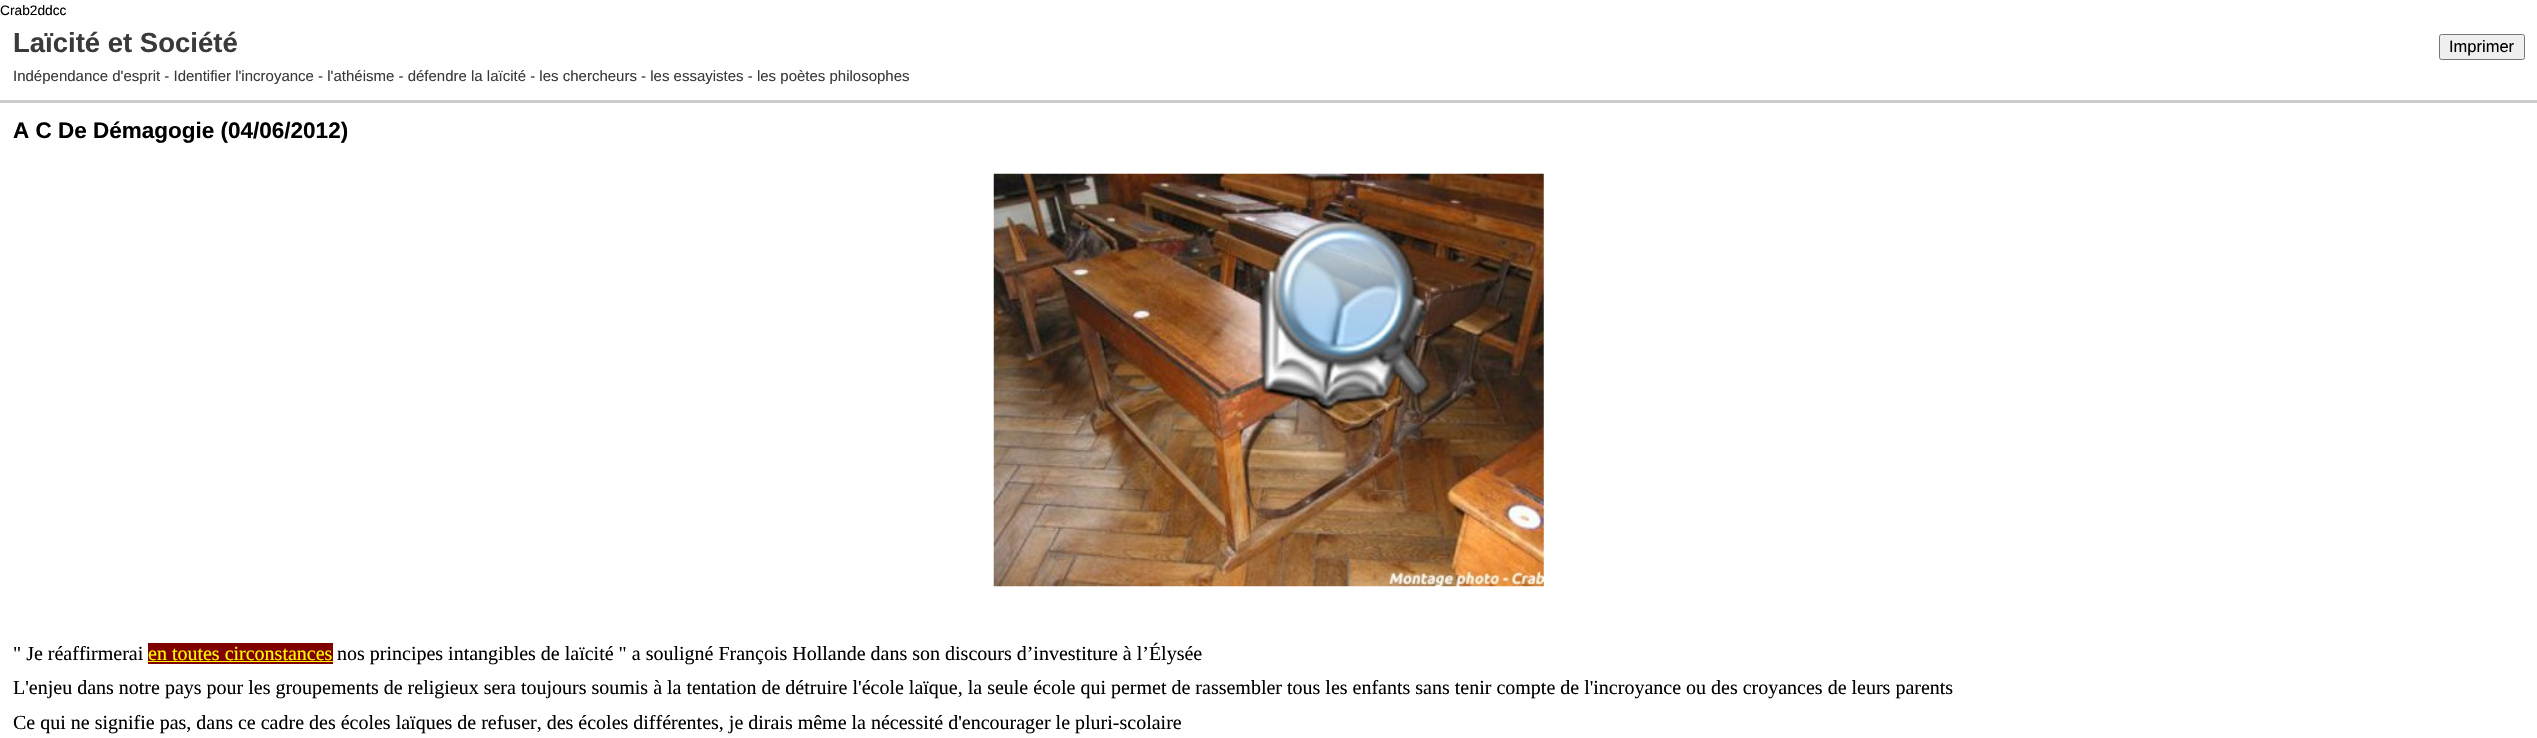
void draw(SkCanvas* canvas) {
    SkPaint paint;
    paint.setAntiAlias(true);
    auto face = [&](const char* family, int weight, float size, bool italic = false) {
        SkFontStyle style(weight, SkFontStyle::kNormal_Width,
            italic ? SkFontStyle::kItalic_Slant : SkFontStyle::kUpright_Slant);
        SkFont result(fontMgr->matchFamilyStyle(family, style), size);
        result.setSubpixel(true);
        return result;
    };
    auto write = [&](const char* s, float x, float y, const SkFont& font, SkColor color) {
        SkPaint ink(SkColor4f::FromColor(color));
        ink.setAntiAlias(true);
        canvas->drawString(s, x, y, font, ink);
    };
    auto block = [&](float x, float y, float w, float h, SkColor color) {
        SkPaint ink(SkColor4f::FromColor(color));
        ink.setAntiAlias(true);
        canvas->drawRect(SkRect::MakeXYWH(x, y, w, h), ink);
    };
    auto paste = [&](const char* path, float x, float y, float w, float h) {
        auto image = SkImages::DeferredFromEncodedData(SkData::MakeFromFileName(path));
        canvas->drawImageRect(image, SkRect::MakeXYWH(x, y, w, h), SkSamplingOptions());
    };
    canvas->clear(SK_ColorWHITE);
    auto kFont1 = face("Liberation Sans", 400, 13.75f);
    write("Crab2ddcc", 0, 15, kFont1, SK_ColorBLACK);
    block(0, 100, 2537, 3, SkColorSetRGB(204, 204, 204));
    auto kFont2 = face("Liberation Sans", 700, 27.5f);
    write("Laïcité et Société", 13, 52, kFont2, SkColorSetRGB(58, 58, 58));
    paint.setColor(SkColorSetRGB(239, 239, 239));
    canvas->drawRoundRect(SkRect::MakeXYWH(2439.5f, 34.5f, 85, 25), 2, 2, paint);
    paint.setStyle(SkPaint::kStroke_Style);
    paint.setStrokeWidth(1);
    paint.setColor(SkColorSetRGB(118, 118, 118));
    canvas->drawRoundRect(SkRect::MakeXYWH(2439.5f, 34.5f, 85, 25), 2, 2, paint);
    auto kFont3 = face("Liberation Sans", 400, 16.5f);
    write("Imprimer", 2449, 52, kFont3, SK_ColorBLACK);
    auto kFont4 = face("Liberation Sans", 400, 15);
    write("Indépendance d'esprit - Identifier l'incroyance - l'athéisme - défendre la laïcité - les chercheurs - les essayistes - les poètes philosophes", 13, 81, kFont4, SkColorSetRGB(58, 58, 58));
    auto kFont5 = face("Liberation Sans", 700, 22.5f);
    write("A C De Démagogie (04/06/2012)", 13, 138, kFont5, SK_ColorBLACK);
    paste("pic1.png", 993, 173, 551, 414);
    auto kFont6 = face("Liberation Serif", 400, 20);
    write("\" Je réaffirmerai", 13, 660, kFont6, SK_ColorBLACK);
    block(148, 643, 185, 21, SkColorSetRGB(128, 0, 0));
    write("en toutes circonstances", 148, 660, kFont6, SkColorSetRGB(255, 255, 0));
    block(148, 661, 185, 1, SkColorSetRGB(255, 255, 0));
    write("nos principes intangibles de laïcité \" a souligné François Hollande dans son discours d’investiture à l’Élysée", 337, 660, kFont6, SK_ColorBLACK);
    write("L'enjeu dans notre pays pour les groupements de religieux sera toujours soumis à la tentation de détruire l'école laïque, la seule école qui permet de rassembler tous les enfants sans tenir compte de l'incroyance ou des croyances de leurs parents", 13, 694, kFont6, SK_ColorBLACK);
    write("Ce qui ne signifie pas, dans ce cadre des écoles laïques de refuser, des écoles différentes, je dirais même la nécessité d'encourager le pluri-scolaire", 13, 729, kFont6, SK_ColorBLACK);
}
